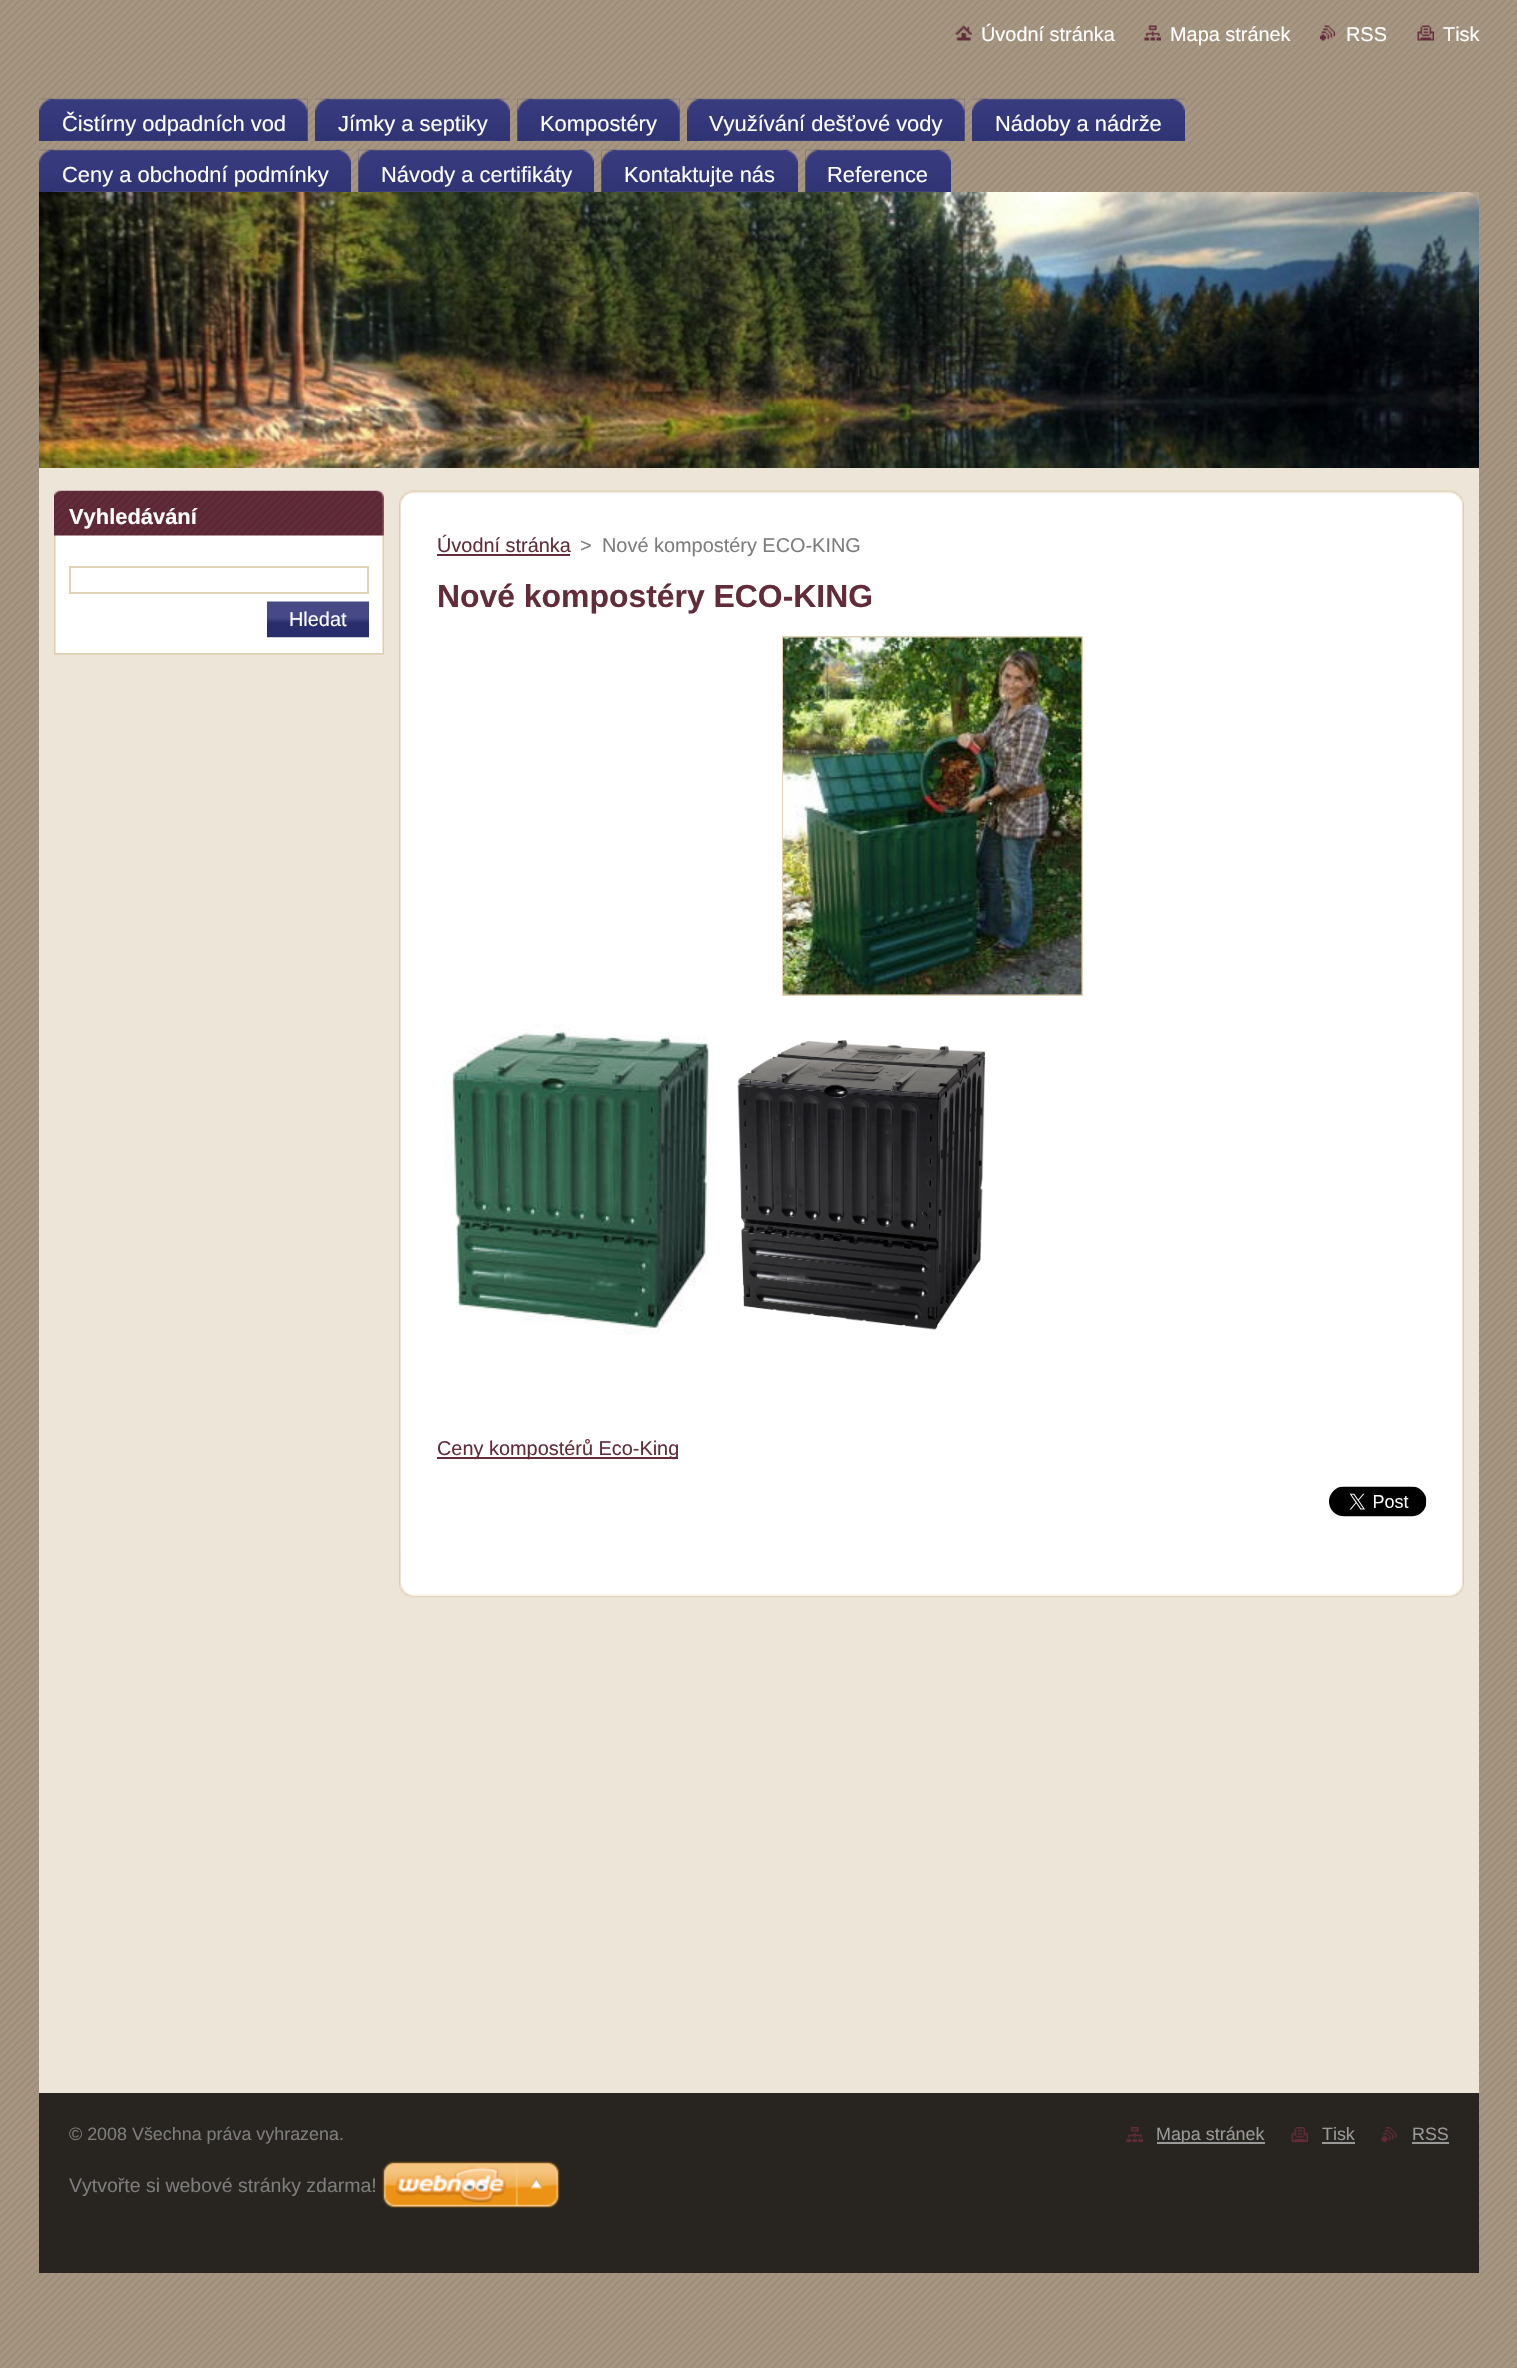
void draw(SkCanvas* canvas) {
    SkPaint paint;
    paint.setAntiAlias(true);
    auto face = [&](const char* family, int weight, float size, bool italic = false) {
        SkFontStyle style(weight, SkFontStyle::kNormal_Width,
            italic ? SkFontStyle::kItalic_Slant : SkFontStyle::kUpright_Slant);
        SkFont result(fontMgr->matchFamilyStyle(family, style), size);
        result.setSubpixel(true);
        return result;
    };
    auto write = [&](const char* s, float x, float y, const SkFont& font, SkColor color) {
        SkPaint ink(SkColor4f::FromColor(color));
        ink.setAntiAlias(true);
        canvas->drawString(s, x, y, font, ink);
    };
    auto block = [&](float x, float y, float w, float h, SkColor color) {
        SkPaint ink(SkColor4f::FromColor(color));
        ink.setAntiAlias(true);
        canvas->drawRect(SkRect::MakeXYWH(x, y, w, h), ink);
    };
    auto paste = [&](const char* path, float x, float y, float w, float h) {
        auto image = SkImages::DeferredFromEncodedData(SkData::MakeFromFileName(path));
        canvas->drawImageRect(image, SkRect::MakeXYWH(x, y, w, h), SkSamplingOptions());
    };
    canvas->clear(SK_ColorWHITE);
    paste("pic1.png", 0, 0, 1517, 2368);
    block(39, 1620, 1440, 473, SkColorSetRGB(237, 229, 215));
    paste("pic2.png", 955, 25, 17, 16);
    auto kFont1 = face("Liberation Sans", 400, 19.9f);
    write("Úvodní stránka", 981, 41, kFont1, SK_ColorWHITE);
    paste("pic3.png", 1144, 25, 17, 16);
    write("Mapa stránek", 1170, 41, kFont1, SK_ColorWHITE);
    paste("pic4.png", 1320, 25, 15, 16);
    write("RSS", 1346, 41, kFont1, SK_ColorWHITE);
    paste("pic5.png", 1417, 25, 17, 16);
    write("Tisk", 1443, 41, kFont1, SK_ColorWHITE);
    paste("pic6.png", 39, 98, 269, 43);
    paste("pic7.png", 39, 98, 15, 43);
    paste("pic8.png", 292, 98, 16, 43);
    auto kFont2 = face("Liberation Sans", 400, 21.9f);
    write("Čistírny odpadních vod", 62, 131, kFont2, SK_ColorWHITE);
    paste("pic9.png", 315, 98, 195, 43);
    paste("pic10.png", 315, 98, 15, 43);
    paste("pic11.png", 495, 98, 15, 43);
    write("Jímky a septiky", 338, 131, kFont2, SK_ColorWHITE);
    paste("pic12.png", 517, 98, 163, 43);
    paste("pic13.png", 517, 98, 16, 43);
    paste("pic14.png", 664, 98, 16, 43);
    write("Kompostéry", 540, 131, kFont2, SK_ColorWHITE);
    paste("pic15.png", 687, 98, 278, 43);
    paste("pic16.png", 687, 98, 15, 43);
    paste("pic17.png", 949, 98, 16, 43);
    write("Využívání dešťové vody", 709, 131, kFont2, SK_ColorWHITE);
    paste("pic18.png", 972, 98, 213, 43);
    paste("pic16.png", 972, 98, 15, 43);
    paste("pic11.png", 1170, 98, 15, 43);
    write("Nádoby a nádrže", 995, 131, kFont2, SK_ColorWHITE);
    paste("pic19.png", 39, 149, 312, 43);
    paste("pic20.png", 39, 149, 15, 43);
    paste("pic21.png", 336, 149, 15, 43);
    write("Ceny a obchodní podmínky", 62, 182, kFont2, SK_ColorWHITE);
    paste("pic22.png", 358, 149, 236, 43);
    paste("pic23.png", 358, 149, 16, 43);
    paste("pic11.png", 579, 149, 15, 43);
    write("Návody a certifikáty", 381, 182, kFont2, SK_ColorWHITE);
    paste("pic24.png", 601, 149, 197, 43);
    paste("pic25.png", 601, 149, 16, 43);
    paste("pic26.png", 783, 149, 15, 43);
    write("Kontaktujte nás", 624, 182, kFont2, SK_ColorWHITE);
    paste("pic27.png", 805, 149, 146, 43);
    paste("pic28.png", 805, 149, 16, 43);
    paste("pic29.png", 936, 149, 15, 43);
    write("Reference", 827, 182, kFont2, SK_ColorWHITE);
    paste("pic30.png", 39, 192, 1440, 276);
    paste("pic31.png", 1467, 192, 12, 12);
    block(39, 468, 1440, 1152, SkColorSetRGB(237, 229, 216));
    paste("pic32.png", 54, 490, 330, 163);
    block(54, 653, 330, 2, SkColorSetRGB(225, 209, 181));
    paste("pic33.png", 54, 490, 330, 46);
    auto kFont3 = face("Liberation Sans", 700, 21.9f);
    write("Vyhledávání", 69, 524, kFont3, SK_ColorWHITE);
    paint.setStyle(SkPaint::kStroke_Style);
    paint.setStrokeWidth(2);
    paint.setColor(SkColorSetRGB(225, 209, 181));
    canvas->drawRect(SkRect::MakeXYWH(70, 567, 298, 26), paint);
    paste("pic34.png", 267, 601, 102, 37);
    write("Hledat", 289, 626, kFont1, SK_ColorWHITE);
    paste("pic35.png", 399, 490, 1065, 38);
    paste("pic36.png", 399, 1552, 1065, 46);
    paste("pic37.png", 399, 528, 1065, 1024);
    write("Úvodní stránka", 437, 552, kFont1, SkColorSetRGB(99, 44, 59));
    block(437, 554, 133, 2, SkColorSetRGB(99, 44, 59));
    write(">", 580, 552, kFont1, SkColorSetRGB(125, 125, 125));
    write("Nové kompostéry ECO-KING", 602, 552, kFont1, SkColorSetRGB(125, 125, 125));
    auto kFont4 = face("Liberation Sans", 700, 31.9f);
    write("Nové kompostéry ECO-KING", 437, 607, kFont4, SkColorSetRGB(99, 44, 59));
    canvas->drawRect(SkRect::MakeXYWH(783, 637, 299, 358), paint);
    paste("pic38.png", 783, 637, 299, 358);
    paste("pic39.png", 444, 1023, 265, 312);
    paste("pic40.png", 737, 1040, 249, 290);
    block(437, 1457, 241, 2, SkColorSetRGB(99, 44, 59));
    write("Ceny kompostérů Eco-King", 437, 1455, kFont1, SkColorSetRGB(99, 44, 59));
    paste("pic41.png", 1329, 1486, 98, 31);
    block(39, 2093, 1440, 180, SkColorSetRGB(40, 36, 31));
    auto kFont5 = face("Liberation Sans", 400, 17.9f);
    write("© 2008 Všechna práva vyhrazena.", 69, 2140, kFont5, SkColorSetRGB(125, 125, 125));
    paste("pic42.png", 1126, 2127, 17, 15);
    block(1157, 2142, 108, 2, SkColorSetRGB(153, 153, 153));
    write("Mapa stránek", 1156, 2140, kFont5, SkColorSetRGB(153, 153, 153));
    paste("pic43.png", 1291, 2127, 17, 15);
    write("Tisk", 1322, 2140, kFont5, SkColorSetRGB(153, 153, 153));
    block(1322, 2142, 33, 2, SkColorSetRGB(153, 153, 153));
    paste("pic44.png", 1381, 2127, 16, 15);
    write("RSS", 1412, 2140, kFont5, SkColorSetRGB(153, 153, 153));
    block(1412, 2142, 37, 2, SkColorSetRGB(153, 153, 153));
    auto kFont6 = face("Liberation Sans", 400, 19.5f);
    write("Vytvořte si webové stránky zdarma!", 69, 2192, kFont6, SkColorSetRGB(125, 125, 125));
    paste("pic45.png", 382, 2161, 178, 47);
}
